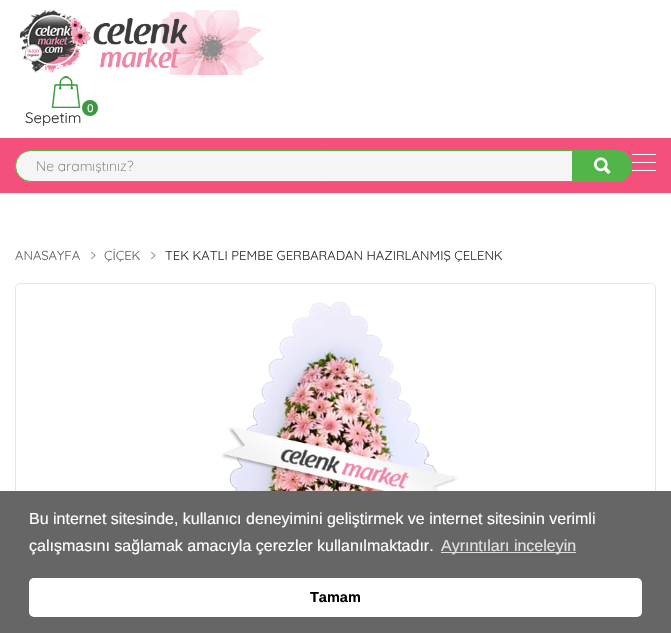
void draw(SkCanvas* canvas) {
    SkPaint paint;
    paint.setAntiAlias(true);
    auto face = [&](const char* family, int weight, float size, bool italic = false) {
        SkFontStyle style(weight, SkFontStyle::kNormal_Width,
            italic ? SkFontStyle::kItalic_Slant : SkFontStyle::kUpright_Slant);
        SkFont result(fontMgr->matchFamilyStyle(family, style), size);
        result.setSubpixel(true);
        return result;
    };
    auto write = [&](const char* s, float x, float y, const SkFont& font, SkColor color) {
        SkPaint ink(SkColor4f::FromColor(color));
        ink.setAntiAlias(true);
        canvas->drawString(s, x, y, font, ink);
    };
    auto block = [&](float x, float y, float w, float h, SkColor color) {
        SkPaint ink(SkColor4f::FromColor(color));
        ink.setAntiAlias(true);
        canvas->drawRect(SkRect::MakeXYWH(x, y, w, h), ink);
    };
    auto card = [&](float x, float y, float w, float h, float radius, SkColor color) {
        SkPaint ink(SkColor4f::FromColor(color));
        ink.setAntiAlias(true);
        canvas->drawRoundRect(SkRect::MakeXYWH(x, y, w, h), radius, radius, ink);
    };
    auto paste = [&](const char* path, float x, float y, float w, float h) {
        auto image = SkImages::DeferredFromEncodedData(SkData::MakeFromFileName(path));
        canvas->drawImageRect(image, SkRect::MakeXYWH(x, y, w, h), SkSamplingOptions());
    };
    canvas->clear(SK_ColorWHITE);
    paste("pic1.png", 20, 10, 244, 65);
    paste("pic2.png", 51, 76, 30, 32);
    paint.setColor(SkColorSetRGB(58, 153, 67));
    canvas->drawCircle(90, 108, 8, paint);
    auto kFont1 = face("IBM Plex Sans", 400, 11);
    write("0", 87, 112, kFont1, SK_ColorWHITE);
    auto kFont2 = face("Quicksand", 400, 15);
    write("Sepetim", 25, 123, kFont2, SkColorSetRGB(51, 51, 51));
    block(0, 138, 671, 55, SkColorSetRGB(245, 80, 123));
    paint.setColor(SkColorSetRGB(245, 245, 245));
    canvas->drawRoundRect(SkRect::MakeXYWH(15.5f, 150.5f, 616, 31), 15.5f, 15.5f, paint);
    paint.setStyle(SkPaint::kStroke_Style);
    paint.setStrokeWidth(1);
    paint.setColor(SkColorSetRGB(81, 181, 73));
    canvas->drawRoundRect(SkRect::MakeXYWH(15.5f, 150.5f, 616, 31), 15.5f, 15.5f, paint);
    auto kFont3 = face("Quicksand", 300, 14);
    write("Ne aramıştınız?", 36, 171, kFont3, SkColorSetRGB(117, 117, 117));
    paint.setStyle(SkPaint::kFill_Style);
    canvas->drawPath(SkPathBuilder().moveTo(572, 150).lineTo(616, 150).cubicTo(625, 150, 632, 157, 632, 166).cubicTo(632, 175, 625, 182, 616, 182).lineTo(572, 182).close().detach(), paint);
    paste("pic3.png", 594, 157, 17, 17);
    block(632, 162, 24, 1, SK_ColorWHITE);
    block(632, 154, 24, 1, SK_ColorWHITE);
    block(632, 170, 24, 1, SK_ColorWHITE);
    auto kFont4 = face("Quicksand", 400, 13);
    write("ANASAYFA", 15, 260, kFont4, SkColorSetRGB(102, 102, 102));
    paste("pic4.png", 91, 251, 5, 9);
    write("ÇİÇEK", 104, 260, kFont4, SkColorSetRGB(102, 102, 102));
    paste("pic4.png", 151, 251, 5, 9);
    write("TEK KATLI PEMBE GERBARADAN HAZIRLANMIŞ ÇELENK", 165, 260, kFont4, SkColorSetRGB(51, 51, 51));
    paint.setStyle(SkPaint::kStroke_Style);
    paint.setColor(SkColorSetRGB(230, 230, 230));
    canvas->drawRoundRect(SkRect::MakeXYWH(15.5f, 283.5f, 640, 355), 4.5f, 4.5f, paint);
    paste("pic5.png", 221, 301, 369, 190);
    block(0, 491, 671, 142, SkColorSetRGB(102, 102, 102));
    auto kFont5 = face("Liberation Sans", 400, 16);
    write("Bu internet sitesinde, kullanıcı deneyimini geliştirmek ve internet sitesinin verimli", 29, 524, kFont5, SK_ColorWHITE);
    write("çalışmasını sağlamak amacıyla çerezler kullanılmaktadır.", 29, 551, kFont5, SK_ColorWHITE);
    block(441, 552, 135, 1, SkColorSetRGB(224, 224, 224));
    write("Ayrıntıları inceleyin", 441, 551, kFont5, SkColorSetRGB(224, 224, 224));
    card(29, 578, 613, 39, 5, SK_ColorWHITE);
    auto kFont6 = face("Liberation Sans", 700, 14.5f);
    write("Tamam", 310, 602, kFont6, SK_ColorBLACK);
}
